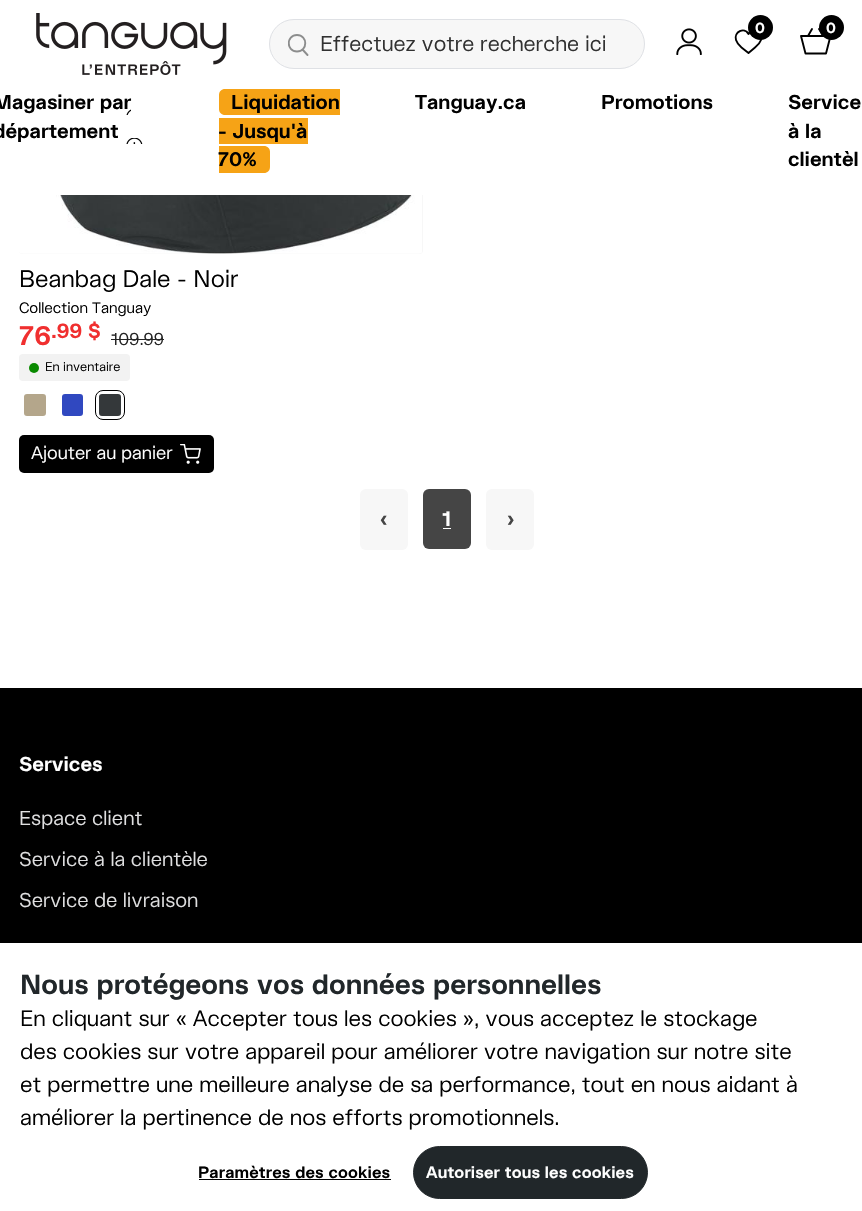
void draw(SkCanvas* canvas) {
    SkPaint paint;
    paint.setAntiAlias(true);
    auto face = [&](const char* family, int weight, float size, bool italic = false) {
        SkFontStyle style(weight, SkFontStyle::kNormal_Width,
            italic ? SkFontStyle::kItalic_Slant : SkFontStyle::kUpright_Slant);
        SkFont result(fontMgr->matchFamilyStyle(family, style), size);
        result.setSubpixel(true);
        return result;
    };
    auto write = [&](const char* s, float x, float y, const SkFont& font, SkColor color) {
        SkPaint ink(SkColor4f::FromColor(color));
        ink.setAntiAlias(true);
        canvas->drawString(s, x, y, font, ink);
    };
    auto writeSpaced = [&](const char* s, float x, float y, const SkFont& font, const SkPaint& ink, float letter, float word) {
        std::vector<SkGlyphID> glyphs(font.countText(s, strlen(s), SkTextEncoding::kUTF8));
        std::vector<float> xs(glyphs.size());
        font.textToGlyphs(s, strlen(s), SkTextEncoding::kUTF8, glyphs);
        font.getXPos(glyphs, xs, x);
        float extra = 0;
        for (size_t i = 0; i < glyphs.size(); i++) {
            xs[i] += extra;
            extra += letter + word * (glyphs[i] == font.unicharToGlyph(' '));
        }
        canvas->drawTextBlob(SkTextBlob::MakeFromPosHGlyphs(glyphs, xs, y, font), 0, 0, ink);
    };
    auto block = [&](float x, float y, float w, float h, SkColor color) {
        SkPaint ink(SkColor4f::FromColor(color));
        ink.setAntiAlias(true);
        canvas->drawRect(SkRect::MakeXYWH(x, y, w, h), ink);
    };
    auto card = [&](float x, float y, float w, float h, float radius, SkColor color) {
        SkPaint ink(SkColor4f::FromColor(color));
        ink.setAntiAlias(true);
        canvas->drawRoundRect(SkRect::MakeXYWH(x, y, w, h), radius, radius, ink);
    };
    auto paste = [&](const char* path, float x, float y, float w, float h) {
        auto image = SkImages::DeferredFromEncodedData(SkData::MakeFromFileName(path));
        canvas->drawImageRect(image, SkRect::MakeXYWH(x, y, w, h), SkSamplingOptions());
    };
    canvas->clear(SK_ColorWHITE);
    card(19, -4, 404, 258, 4, SkColorSetRGB(247, 247, 247));
    block(19, 0, 404, 195, SK_ColorWHITE);
    paste("pic1.png", 36, 13, 191, 62);
    paste("pic2.png", 676, 28, 26, 27);
    paint.setStyle(SkPaint::kStroke_Style);
    paint.setStrokeWidth(1.9f);
    paint.setStrokeCap(SkPaint::kRound_Cap);
    paint.setStrokeJoin(SkPaint::kRound_Join);
    paint.setColor(SK_ColorBLACK);
    canvas->drawPath(SkPathBuilder().moveTo(748.5f, 53).lineTo(755, 47.5f).cubicTo(757.5f, 45.5f, 760, 43, 761, 40).cubicTo(763, 32, 752, 26.5f, 748.5f, 34).cubicTo(744.5f, 26.5f, 733.5f, 32, 736, 40).cubicTo(737, 43, 739, 45.5f, 741.5f, 47.5f).close().detach(), paint);
    paint.setStyle(SkPaint::kFill_Style);
    canvas->drawCircle(760.5f, 27.5f, 12.5f, paint);
    auto kFont1 = face("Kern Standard", 700, 15);
    write("0", 755, 33, kFont1, SK_ColorWHITE);
    paint.setStyle(SkPaint::kStroke_Style);
    canvas->drawPath(SkPathBuilder().moveTo(826, 53.5f).lineTo(805.5f, 53.5f).lineTo(801, 36).lineTo(830.5f, 36).close().moveTo(823.5f, 36).lineTo(819, 29).moveTo(812, 29).lineTo(808, 36).detach(), paint);
    paint.setStyle(SkPaint::kFill_Style);
    canvas->drawCircle(831.5f, 27.5f, 12.5f, paint);
    write("0", 826, 33, kFont1, SK_ColorWHITE);
    paint.setColor(SkColorSetRGB(247, 247, 247));
    canvas->drawRoundRect(SkRect::MakeXYWH(269.5f, 19.5f, 375, 49), 24.5f, 24.5f, paint);
    paint.setStyle(SkPaint::kStroke_Style);
    paint.setStrokeWidth(1);
    paint.setStrokeCap(SkPaint::kButt_Cap);
    paint.setStrokeJoin(SkPaint::kMiter_Join);
    paint.setColor(SkColorSetRGB(223, 225, 229));
    canvas->drawRoundRect(SkRect::MakeXYWH(269.5f, 19.5f, 375, 49), 24.5f, 24.5f, paint);
    canvas->save();
    canvas->clipRect(SkRect::MakeXYWH(288, 34, 21, 22));
    paint.setStrokeWidth(1.9f);
    paint.setStrokeCap(SkPaint::kRound_Cap);
    paint.setStrokeJoin(SkPaint::kRound_Join);
    paint.setColor(SkColorSetRGB(140, 141, 141));
    canvas->drawPath(SkPathBuilder().moveTo(297, 51.5f).cubicTo(308, 51.5f, 308, 35, 297, 35).cubicTo(286, 35, 286, 51.5f, 297, 51.5f).close().moveTo(302.5f, 49.5f).lineTo(307.5f, 55).detach(), paint);
    canvas->restore();
    auto kFont2 = face("Kern Standard", 400, 21.25f);
    write("Effectuez votre recherche ici", 320, 51, kFont2, SkColorSetRGB(49, 49, 49));
    paste("pic3.png", 126, 109, 17, 35);
    auto kFont3 = face("Kern Standard", 700, 20);
    write("Magasiner par", -7, 109, kFont3, SK_ColorBLACK);
    write("département", -7, 138, kFont3, SK_ColorBLACK);
    paint.setStyle(SkPaint::kFill_Style);
    paint.setColor(SkColorSetRGB(246, 163, 22));
    canvas->drawPath(SkPathBuilder().moveTo(225, 89).lineTo(340, 89).lineTo(340, 115).lineTo(225, 115).cubicTo(221.5f, 115, 219, 112.5f, 219, 109).lineTo(219, 95).cubicTo(219, 91.5f, 221.5f, 89, 225, 89).close().detach(), paint);
    write("Liquidation", 231, 109, kFont3, SK_ColorBLACK);
    block(219, 118, 89, 26, SkColorSetRGB(246, 163, 22));
    write("- Jusqu'à", 218, 138, kFont3, SK_ColorBLACK);
    canvas->drawPath(SkPathBuilder().moveTo(219, 146).lineTo(264, 146).cubicTo(267.5f, 146, 270, 148.5f, 270, 152).lineTo(270, 167).cubicTo(270, 170.5f, 267.5f, 173, 264, 173).lineTo(219, 173).close().detach(), paint);
    write("70%", 218, 166, kFont3, SK_ColorBLACK);
    write("Tanguay.ca", 415, 109, kFont3, SK_ColorBLACK);
    write("Promotions", 601, 109, kFont3, SK_ColorBLACK);
    write("Service", 788, 109, kFont3, SK_ColorBLACK);
    write("à la", 788, 138, kFont3, SK_ColorBLACK);
    write("clientèl", 788, 166, kFont3, SK_ColorBLACK);
    paste("pic4.png", 19, 195, 403, 59);
    auto kFont4 = face("Kern Standard", 400, 23.75f);
    write("Beanbag Dale - Noir", 19, 287, kFont4, SK_ColorBLACK);
    auto kFont5 = face("Kern Standard", 400, 15);
    write("Collection Tanguay", 19, 313, kFont5, SK_ColorBLACK);
    auto kFont6 = face("Kern Standard", 700, 27.5f);
    write("76", 19, 345, kFont6, SkColorSetRGB(240, 47, 47));
    auto kFont7 = face("Kern Standard", 700, 21);
    write(".99 $", 51, 338, kFont7, SkColorSetRGB(240, 47, 47));
    auto kFont8 = face("Kern Standard", 400, 17.5f);
    write("109.99", 111, 345, kFont8, SkColorSetRGB(36, 36, 36));
    block(111, 339, 53, 1, SkColorSetRGB(36, 36, 36));
    card(19, 354, 111, 27, 4, SkColorSetRGB(242, 242, 242));
    paint.setColor(SkColorSetRGB(10, 138, 0));
    canvas->drawCircle(34, 368, 5, paint);
    auto kFont9 = face("Kern Standard", 400, 12.5f);
    write("En inventaire", 45, 371, kFont9, SK_ColorBLACK);
    paint.setColor(SkColorSetRGB(180, 166, 139));
    canvas->drawRoundRect(SkRect::MakeXYWH(22.5f, 392.5f, 25, 25), 4.5f, 4.5f, paint);
    paint.setStyle(SkPaint::kStroke_Style);
    paint.setStrokeWidth(3);
    paint.setStrokeCap(SkPaint::kButt_Cap);
    paint.setStrokeJoin(SkPaint::kMiter_Join);
    paint.setColor(SK_ColorWHITE);
    canvas->drawRoundRect(SkRect::MakeXYWH(22.5f, 392.5f, 25, 25), 4.5f, 4.5f, paint);
    paint.setStyle(SkPaint::kFill_Style);
    paint.setColor(SkColorSetRGB(48, 72, 192));
    canvas->drawRoundRect(SkRect::MakeXYWH(60.5f, 392.5f, 24, 25), 4.5f, 4.5f, paint);
    paint.setStyle(SkPaint::kStroke_Style);
    paint.setColor(SK_ColorWHITE);
    canvas->drawRoundRect(SkRect::MakeXYWH(60.5f, 392.5f, 24, 25), 4.5f, 4.5f, paint);
    paint.setStyle(SkPaint::kFill_Style);
    paint.setColor(SkColorSetRGB(52, 56, 58));
    canvas->drawRoundRect(SkRect::MakeXYWH(97.5f, 392.5f, 25, 25), 4.5f, 4.5f, paint);
    paint.setStyle(SkPaint::kStroke_Style);
    paint.setColor(SK_ColorWHITE);
    canvas->drawRoundRect(SkRect::MakeXYWH(97.5f, 392.5f, 25, 25), 4.5f, 4.5f, paint);
    paint.setStrokeWidth(1);
    paint.setColor(SK_ColorBLACK);
    canvas->drawRoundRect(SkRect::MakeXYWH(95.5f, 390.5f, 29, 29), 7.5f, 7.5f, paint);
    card(19, 435, 195, 38, 5, SK_ColorBLACK);
    auto kFont10 = face("Kern Standard", 400, 18);
    write("Ajouter au panier", 31, 459, kFont10, SK_ColorWHITE);
    paste("pic5.png", 180, 444, 21, 20);
    card(360, 489, 48, 61, 6, SkColorSetRGB(247, 247, 247));
    auto kFont11 = face("Kern Standard", 700, 21.25f);
    write("‹", 380, 526, kFont11, SkColorSetRGB(69, 69, 69));
    card(423, 489, 48, 60, 6, SkColorSetRGB(69, 69, 69));
    write("1", 442, 526, kFont11, SK_ColorWHITE);
    block(443, 528, 8, 1, SK_ColorWHITE);
    card(486, 489, 48, 61, 6, SkColorSetRGB(247, 247, 247));
    write("›", 507, 526, kFont11, SkColorSetRGB(69, 69, 69));
    block(0, 688, 862, 255, SK_ColorBLACK);
    write("Services", 19, 771, kFont3, SK_ColorWHITE);
    auto kFont12 = face("Kern Standard", 400, 20);
    write("Espace client", 19, 825, kFont12, SkColorSetRGB(223, 223, 224));
    write("Service à la clientèle", 19, 866, kFont12, SkColorSetRGB(223, 223, 224));
    write("Service de livraison", 19, 907, kFont12, SkColorSetRGB(223, 223, 224));
    paint.setStyle(SkPaint::kFill_Style);
    paint.setColor(SkColorSetARGB(51, 0, 0, 0));
    paint.setMaskFilter(SkMaskFilter::MakeBlur(kNormal_SkBlurStyle, 11));
    canvas->drawRect(SkRect::MakeXYWH(0, 943, 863, 268), paint);
    paint.setMaskFilter(nullptr);
    block(0, 943, 862, 268, SK_ColorWHITE);
    write("Nous protégeons vos données personnelles", 20, 994, kFont6, SkColorSetRGB(33, 39, 42));
    auto kFont13 = face("Kern Standard", 400, 22);
    write("En cliquant sur « Accepter tous les cookies », vous acceptez le stockage", 20, 1026, kFont13, SK_ColorBLACK);
    write("des cookies sur votre appareil pour améliorer votre navigation sur notre site", 20, 1059, kFont13, SK_ColorBLACK);
    write("et permettre une meilleure analyse de sa performance, tout en nous aidant à", 20, 1092, kFont13, SK_ColorBLACK);
    write("améliorer la pertinence de nos efforts promotionnels.", 20, 1125, kFont13, SK_ColorBLACK);
    auto kFont14 = face("Kern Standard", 700, 16.25f);
    paint.setColor(SK_ColorBLACK);
    writeSpaced("Paramètres des cookies", 198, 1178, kFont14, paint, 0.15f, 0);
    block(199, 1179, 192, 1, SK_ColorBLACK);
    paint.setColor(SkColorSetRGB(33, 39, 42));
    canvas->drawRoundRect(SkRect::MakeXYWH(413.5f, 1146.5f, 234, 52), 26, 26, paint);
    paint.setStyle(SkPaint::kStroke_Style);
    canvas->drawRoundRect(SkRect::MakeXYWH(413.5f, 1146.5f, 234, 52), 26, 26, paint);
    paint.setStyle(SkPaint::kFill_Style);
    paint.setColor(SK_ColorWHITE);
    writeSpaced("Autoriser tous les cookies", 426, 1178, kFont14, paint, 0.15f, 0);
}
